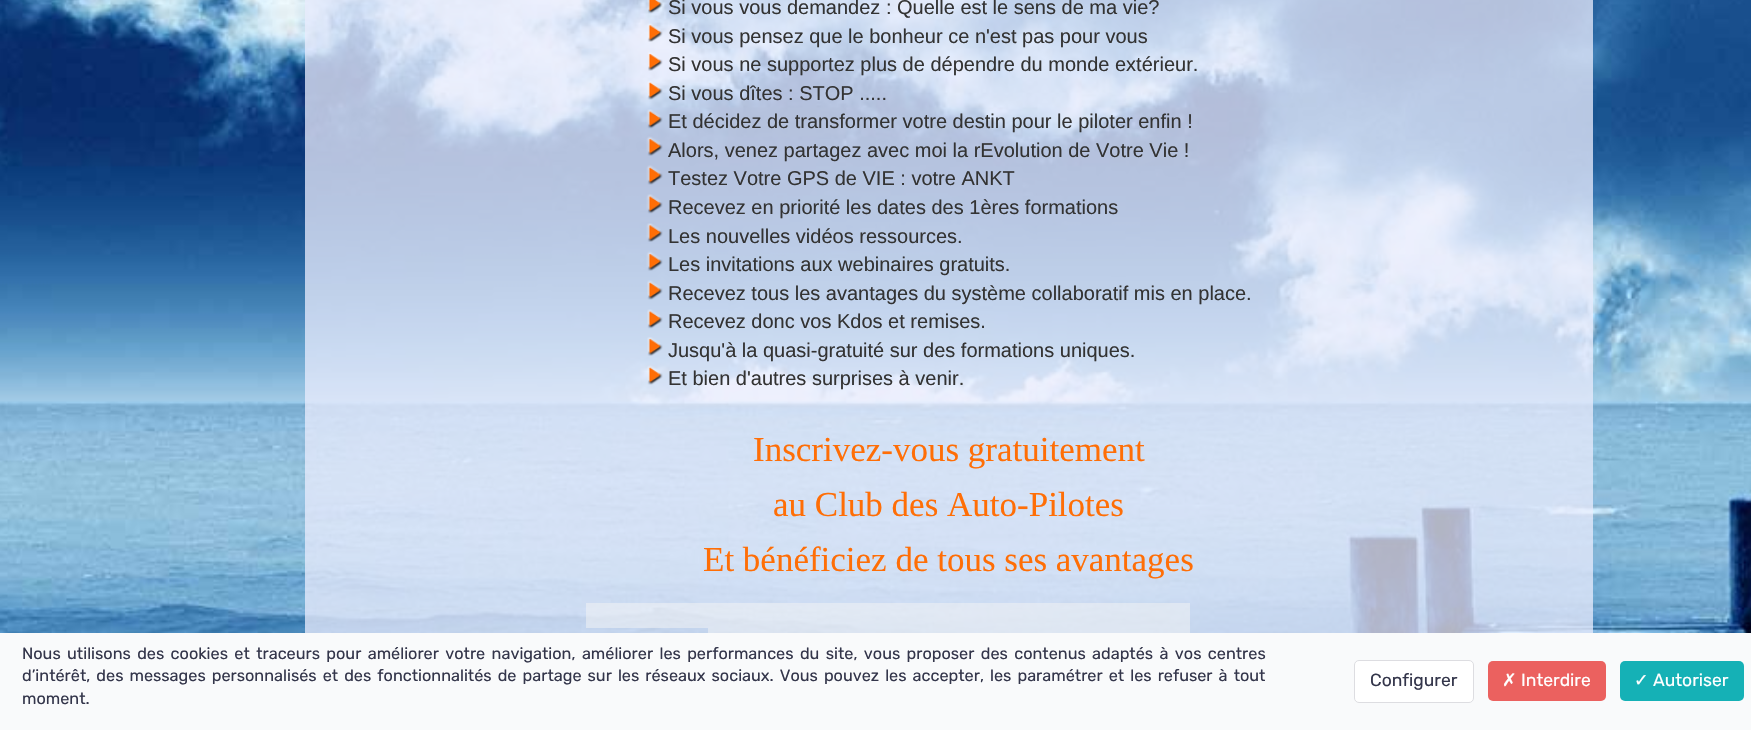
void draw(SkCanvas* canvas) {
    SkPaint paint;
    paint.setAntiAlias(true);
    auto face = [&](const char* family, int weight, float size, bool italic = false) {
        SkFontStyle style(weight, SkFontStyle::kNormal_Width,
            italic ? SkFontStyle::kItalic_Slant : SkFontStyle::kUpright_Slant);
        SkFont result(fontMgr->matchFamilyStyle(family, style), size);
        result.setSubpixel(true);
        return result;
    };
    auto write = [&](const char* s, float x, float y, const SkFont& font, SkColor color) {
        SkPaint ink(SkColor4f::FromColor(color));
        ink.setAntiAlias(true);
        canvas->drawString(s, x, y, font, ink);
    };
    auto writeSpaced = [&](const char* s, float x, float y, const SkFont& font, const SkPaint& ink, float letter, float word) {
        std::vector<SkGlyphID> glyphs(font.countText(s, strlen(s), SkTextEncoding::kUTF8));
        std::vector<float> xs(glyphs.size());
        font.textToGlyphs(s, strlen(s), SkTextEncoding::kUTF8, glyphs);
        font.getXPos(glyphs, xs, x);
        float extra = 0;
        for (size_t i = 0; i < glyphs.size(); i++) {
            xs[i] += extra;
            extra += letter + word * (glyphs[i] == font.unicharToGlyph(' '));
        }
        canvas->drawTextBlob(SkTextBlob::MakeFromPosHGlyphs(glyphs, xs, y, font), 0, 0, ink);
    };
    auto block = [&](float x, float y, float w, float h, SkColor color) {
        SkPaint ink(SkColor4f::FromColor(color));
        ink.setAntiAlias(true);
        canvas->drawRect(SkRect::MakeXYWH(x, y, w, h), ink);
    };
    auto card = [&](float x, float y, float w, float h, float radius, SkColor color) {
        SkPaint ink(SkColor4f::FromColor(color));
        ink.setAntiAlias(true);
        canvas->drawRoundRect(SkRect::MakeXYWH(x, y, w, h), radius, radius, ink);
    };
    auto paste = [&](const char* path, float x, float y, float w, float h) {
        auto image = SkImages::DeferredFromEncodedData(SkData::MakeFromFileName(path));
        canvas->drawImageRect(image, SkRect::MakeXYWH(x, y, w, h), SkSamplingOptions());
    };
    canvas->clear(SK_ColorWHITE);
    paste("pic1.png", 0, 0, 1751, 633);
    block(305, 0, 1288, 633, SkColorSetARGB(194, 232, 235, 252));
    paste("pic2.png", 647, 0, 16, 14);
    auto kFont1 = face("Liberation Sans", 400, 20);
    write("Si vous vous demandez : Quelle est le sens de ma vie?", 668, 14, kFont1, SkColorSetRGB(51, 51, 51));
    paste("pic3.png", 647, 23, 16, 19);
    write("Si vous pensez que le bonheur ce n'est pas pour vous", 668, 43, kFont1, SkColorSetRGB(51, 51, 51));
    paste("pic4.png", 648, 52, 15, 19);
    write("Si vous ne supportez plus de dépendre du monde extérieur.", 668, 71, kFont1, SkColorSetRGB(51, 51, 51));
    paste("pic5.png", 647, 81, 16, 19);
    write("Si vous dîtes : STOP .....", 668, 100, kFont1, SkColorSetRGB(51, 51, 51));
    paste("pic6.png", 646, 109, 17, 20);
    write("Et décidez de transformer votre destin pour le piloter enfin !", 668, 128, kFont1, SkColorSetRGB(51, 51, 51));
    paste("pic7.png", 646, 136, 17, 20);
    write("Alors, venez partagez avec moi la rEvolution de Votre Vie !", 668, 157, kFont1, SkColorSetRGB(51, 51, 51));
    paste("pic8.png", 646, 165, 17, 20);
    write("Testez Votre GPS de VIE : votre ANKT", 668, 185, kFont1, SkColorSetRGB(51, 51, 51));
    paste("pic9.png", 646, 194, 17, 20);
    write("Recevez en priorité les dates des 1ères formations", 668, 214, kFont1, SkColorSetRGB(51, 51, 51));
    paste("pic10.png", 646, 223, 17, 19);
    write("Les nouvelles vidéos ressources.", 668, 243, kFont1, SkColorSetRGB(51, 51, 51));
    paste("pic11.png", 646, 251, 17, 20);
    write("Les invitations aux webinaires gratuits.", 668, 271, kFont1, SkColorSetRGB(51, 51, 51));
    paste("pic12.png", 647, 280, 16, 20);
    write("Recevez tous les avantages du système collaboratif mis en place.", 668, 300, kFont1, SkColorSetRGB(51, 51, 51));
    paste("pic13.png", 647, 309, 16, 20);
    write("Recevez donc vos Kdos et remises.", 668, 328, kFont1, SkColorSetRGB(51, 51, 51));
    paste("pic14.png", 647, 337, 16, 19);
    write("Jusqu'à la quasi-gratuité sur des formations uniques.", 668, 357, kFont1, SkColorSetRGB(51, 51, 51));
    paste("pic15.png", 647, 365, 16, 20);
    write("Et bien d'autres surprises à venir.", 668, 385, kFont1, SkColorSetRGB(51, 51, 51));
    auto kFont2 = face("Liberation Serif", 400, 35);
    write("Inscrivez-vous gratuitement", 753, 461, kFont2, SkColorSetRGB(255, 110, 6));
    write("au Club des Auto-Pilotes", 773, 516, kFont2, SkColorSetRGB(255, 110, 6));
    write("Et bénéficiez de tous ses avantages", 703, 571, kFont2, SkColorSetRGB(255, 110, 6));
    block(586, 603, 122, 25, SkColorSetARGB(125, 244, 244, 244));
    block(708, 603, 482, 30, SkColorSetARGB(125, 244, 244, 244));
    block(0, 633, 1751, 97, SkColorSetRGB(249, 250, 251));
    auto kFont3 = face("Rubik", 400, 16.25f);
    paint.setColor(SkColorSetRGB(52, 54, 75));
    writeSpaced("Nous utilisons des cookies et traceurs pour améliorer votre navigation, améliorer les performances du site, vous proposer des contenus adaptés à vos centres", 22, 659, kFont3, paint, 0, 2.4f);
    writeSpaced("d’intérêt, des messages personnalisés et des fonctionnalités de partage sur les réseaux sociaux. Vous pouvez les accepter, les paramétrer et les refuser à tout", 22, 681, kFont3, paint, 0, 2.1f);
    write("moment.", 22, 704, kFont3, SkColorSetRGB(52, 54, 75));
    paint.setColor(SK_ColorWHITE);
    canvas->drawRoundRect(SkRect::MakeXYWH(1354.5f, 660.5f, 119, 42), 4.5f, 4.5f, paint);
    paint.setStyle(SkPaint::kStroke_Style);
    paint.setStrokeWidth(1);
    paint.setColor(SkColorSetRGB(221, 221, 225));
    canvas->drawRoundRect(SkRect::MakeXYWH(1354.5f, 660.5f, 119, 42), 4.5f, 4.5f, paint);
    auto kFont4 = face("Rubik", 400, 17.5f);
    write("Configurer", 1370, 686, kFont4, SkColorSetRGB(52, 54, 75));
    card(1488, 661, 118, 40, 5, SkColorSetRGB(235, 97, 95));
    auto kFont5 = face("DejaVu Sans", 400, 17.5f);
    write("✗", 1502, 686, kFont5, SK_ColorWHITE);
    write("Interdire", 1521, 686, kFont4, SK_ColorWHITE);
    card(1620, 661, 124, 40, 5, SkColorSetRGB(21, 177, 182));
    write("✓", 1634, 686, kFont5, SK_ColorWHITE);
    write("Autoriser", 1653, 686, kFont4, SK_ColorWHITE);
}
